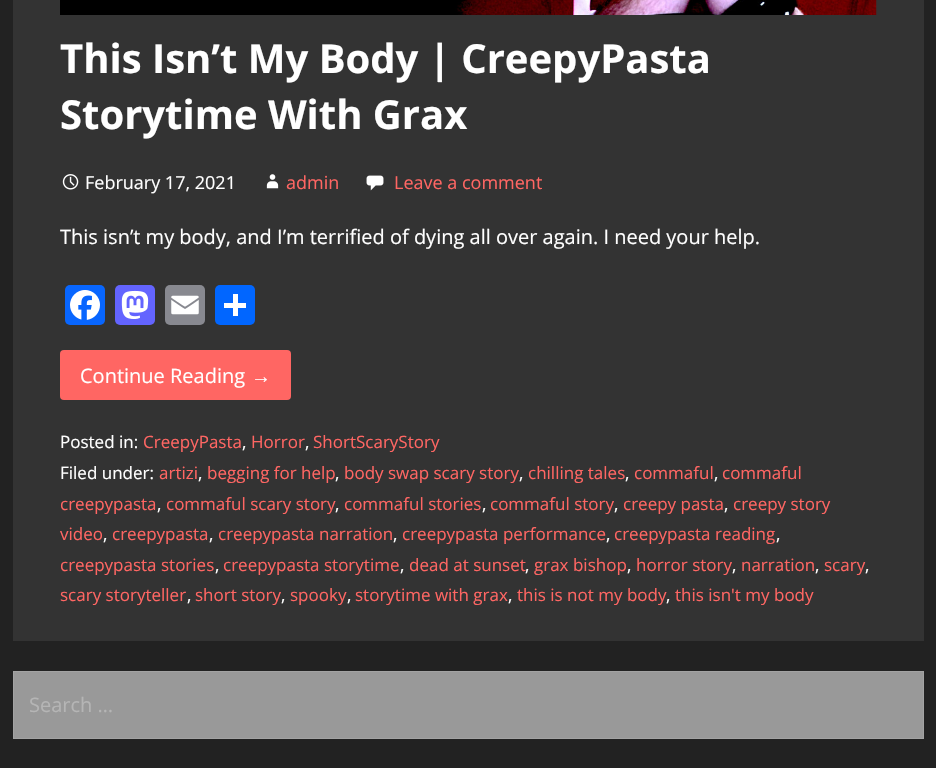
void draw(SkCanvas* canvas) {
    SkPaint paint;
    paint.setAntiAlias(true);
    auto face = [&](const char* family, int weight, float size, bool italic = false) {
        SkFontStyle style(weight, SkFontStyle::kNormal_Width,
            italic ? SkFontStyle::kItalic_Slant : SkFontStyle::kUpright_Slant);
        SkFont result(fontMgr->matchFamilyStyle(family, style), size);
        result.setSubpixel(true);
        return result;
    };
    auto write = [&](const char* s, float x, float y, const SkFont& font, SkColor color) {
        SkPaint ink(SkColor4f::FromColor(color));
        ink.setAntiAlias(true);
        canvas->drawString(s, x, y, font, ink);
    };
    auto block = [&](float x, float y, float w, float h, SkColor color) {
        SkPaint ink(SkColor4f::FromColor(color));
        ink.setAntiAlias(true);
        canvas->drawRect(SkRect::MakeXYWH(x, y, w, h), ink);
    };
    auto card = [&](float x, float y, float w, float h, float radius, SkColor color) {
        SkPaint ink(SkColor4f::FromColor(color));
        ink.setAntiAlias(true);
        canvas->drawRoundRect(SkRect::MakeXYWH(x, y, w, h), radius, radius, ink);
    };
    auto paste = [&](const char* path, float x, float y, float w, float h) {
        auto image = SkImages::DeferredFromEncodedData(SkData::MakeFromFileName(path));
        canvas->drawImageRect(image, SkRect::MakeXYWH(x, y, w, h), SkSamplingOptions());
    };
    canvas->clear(SkColorSetRGB(34, 34, 34));
    block(13, 0, 911, 641, SkColorSetRGB(51, 51, 51));
    paste("pic1.png", 60, 0, 817, 15);
    auto kFont1 = face("Open Sans", 700, 40);
    write("This Isn’t My Body | CreepyPasta", 60, 73, kFont1, SK_ColorWHITE);
    write("Storytime With Grax", 60, 129, kFont1, SK_ColorWHITE);
    paste("pic2.png", 62, 174, 17, 16);
    auto kFont2 = face("Open Sans", 400, 18);
    write("February 17, 2021", 85, 189, kFont2, SK_ColorWHITE);
    paste("pic3.png", 266, 174, 13, 15);
    write("admin", 286, 189, kFont2, SkColorSetRGB(255, 102, 99));
    paste("pic4.png", 366, 175, 18, 16);
    write("Leave a comment", 394, 189, kFont2, SkColorSetRGB(255, 102, 99));
    auto kFont3 = face("Open Sans", 400, 20);
    write("This isn’t my body, and I’m terrified of dying all over again. I need your help.", 60, 244, kFont3, SK_ColorWHITE);
    card(65, 285, 40, 40, 5, SkColorSetRGB(8, 102, 255));
    paste("pic5.png", 70, 290, 30, 30);
    card(115, 285, 40, 40, 5, SkColorSetRGB(99, 100, 255));
    paste("pic6.png", 121, 290, 28, 29);
    card(165, 285, 40, 40, 5, SkColorSetRGB(136, 137, 144));
    paste("pic7.png", 171, 295, 28, 20);
    card(215, 285, 40, 40, 5, SkColorSetRGB(1, 102, 255));
    block(233, 294, 5, 22, SK_ColorWHITE);
    block(224, 303, 22, 5, SK_ColorWHITE);
    card(60, 350, 231, 50, 4, SkColorSetRGB(255, 102, 99));
    write("Continue Reading", 80, 383, kFont3, SK_ColorWHITE);
    auto kFont4 = face("Liberation Sans", 400, 20);
    write("→", 251, 383, kFont4, SK_ColorWHITE);
    auto kFont5 = face("Open Sans", 400, 17);
    write("Posted in:", 60, 448, kFont5, SK_ColorWHITE);
    write("CreepyPasta", 143, 448, kFont5, SkColorSetRGB(255, 102, 99));
    write(",", 242, 448, kFont5, SK_ColorWHITE);
    write("Horror", 251, 448, kFont5, SkColorSetRGB(255, 102, 99));
    write(",", 305, 448, kFont5, SK_ColorWHITE);
    write("ShortScaryStory", 313, 448, kFont5, SkColorSetRGB(255, 102, 99));
    write("Filed under:", 60, 479, kFont5, SK_ColorWHITE);
    write("artizi", 159, 479, kFont5, SkColorSetRGB(255, 102, 99));
    write(",", 198, 479, kFont5, SK_ColorWHITE);
    write("begging for help", 207, 479, kFont5, SkColorSetRGB(255, 102, 99));
    write(",", 335, 479, kFont5, SK_ColorWHITE);
    write("body swap scary story", 344, 479, kFont5, SkColorSetRGB(255, 102, 99));
    write(",", 519, 479, kFont5, SK_ColorWHITE);
    write("chilling tales", 528, 479, kFont5, SkColorSetRGB(255, 102, 99));
    write(",", 625, 479, kFont5, SK_ColorWHITE);
    write("commaful", 634, 479, kFont5, SkColorSetRGB(255, 102, 99));
    write(",", 714, 479, kFont5, SK_ColorWHITE);
    write("commaful", 722, 479, kFont5, SkColorSetRGB(255, 102, 99));
    write("creepypasta", 60, 510, kFont5, SkColorSetRGB(255, 102, 99));
    write(",", 157, 510, kFont5, SK_ColorWHITE);
    write("commaful scary story", 166, 510, kFont5, SkColorSetRGB(255, 102, 99));
    write(",", 335, 510, kFont5, SK_ColorWHITE);
    write("commaful stories", 344, 510, kFont5, SkColorSetRGB(255, 102, 99));
    write(",", 482, 510, kFont5, SK_ColorWHITE);
    write("commaful story", 490, 510, kFont5, SkColorSetRGB(255, 102, 99));
    write(",", 614, 510, kFont5, SK_ColorWHITE);
    write("creepy pasta", 623, 510, kFont5, SkColorSetRGB(255, 102, 99));
    write(",", 724, 510, kFont5, SK_ColorWHITE);
    write("creepy story", 733, 510, kFont5, SkColorSetRGB(255, 102, 99));
    write("video", 60, 540, kFont5, SkColorSetRGB(255, 102, 99));
    write(",", 103, 540, kFont5, SK_ColorWHITE);
    write("creepypasta", 112, 540, kFont5, SkColorSetRGB(255, 102, 99));
    write(",", 209, 540, kFont5, SK_ColorWHITE);
    write("creepypasta narration", 218, 540, kFont5, SkColorSetRGB(255, 102, 99));
    write(",", 393, 540, kFont5, SK_ColorWHITE);
    write("creepypasta performance", 402, 540, kFont5, SkColorSetRGB(255, 102, 99));
    write(",", 606, 540, kFont5, SK_ColorWHITE);
    write("creepypasta reading", 614, 540, kFont5, SkColorSetRGB(255, 102, 99));
    write(",", 776, 540, kFont5, SK_ColorWHITE);
    write("creepypasta stories", 60, 571, kFont5, SkColorSetRGB(255, 102, 99));
    write(",", 215, 571, kFont5, SK_ColorWHITE);
    write("creepypasta storytime", 223, 571, kFont5, SkColorSetRGB(255, 102, 99));
    write(",", 400, 571, kFont5, SK_ColorWHITE);
    write("dead at sunset", 409, 571, kFont5, SkColorSetRGB(255, 102, 99));
    write(",", 525, 571, kFont5, SK_ColorWHITE);
    write("grax bishop", 534, 571, kFont5, SkColorSetRGB(255, 102, 99));
    write(",", 627, 571, kFont5, SK_ColorWHITE);
    write("horror story", 636, 571, kFont5, SkColorSetRGB(255, 102, 99));
    write(",", 732, 571, kFont5, SK_ColorWHITE);
    write("narration", 741, 571, kFont5, SkColorSetRGB(255, 102, 99));
    write(",", 815, 571, kFont5, SK_ColorWHITE);
    write("scary", 824, 571, kFont5, SkColorSetRGB(255, 102, 99));
    write(",", 865, 571, kFont5, SK_ColorWHITE);
    write("scary storyteller", 60, 601, kFont5, SkColorSetRGB(255, 102, 99));
    write(",", 187, 601, kFont5, SK_ColorWHITE);
    write("short story", 195, 601, kFont5, SkColorSetRGB(255, 102, 99));
    write(",", 281, 601, kFont5, SK_ColorWHITE);
    write("spooky", 290, 601, kFont5, SkColorSetRGB(255, 102, 99));
    write(",", 347, 601, kFont5, SK_ColorWHITE);
    write("storytime with grax", 355, 601, kFont5, SkColorSetRGB(255, 102, 99));
    write(",", 508, 601, kFont5, SK_ColorWHITE);
    write("this is not my body", 517, 601, kFont5, SkColorSetRGB(255, 102, 99));
    write(",", 666, 601, kFont5, SK_ColorWHITE);
    write("this isn't my body", 675, 601, kFont5, SkColorSetRGB(255, 102, 99));
    paint.setColor(SkColorSetRGB(153, 153, 153));
    canvas->drawRect(SkRect::MakeXYWH(13.5f, 671.5f, 910, 67), paint);
    paint.setStyle(SkPaint::kStroke_Style);
    paint.setStrokeWidth(1);
    paint.setColor(SkColorSetRGB(163, 163, 163));
    canvas->drawRect(SkRect::MakeXYWH(13.5f, 671.5f, 910, 67), paint);
    write("Search …", 29, 712, kFont3, SkColorSetRGB(181, 181, 181));
}
